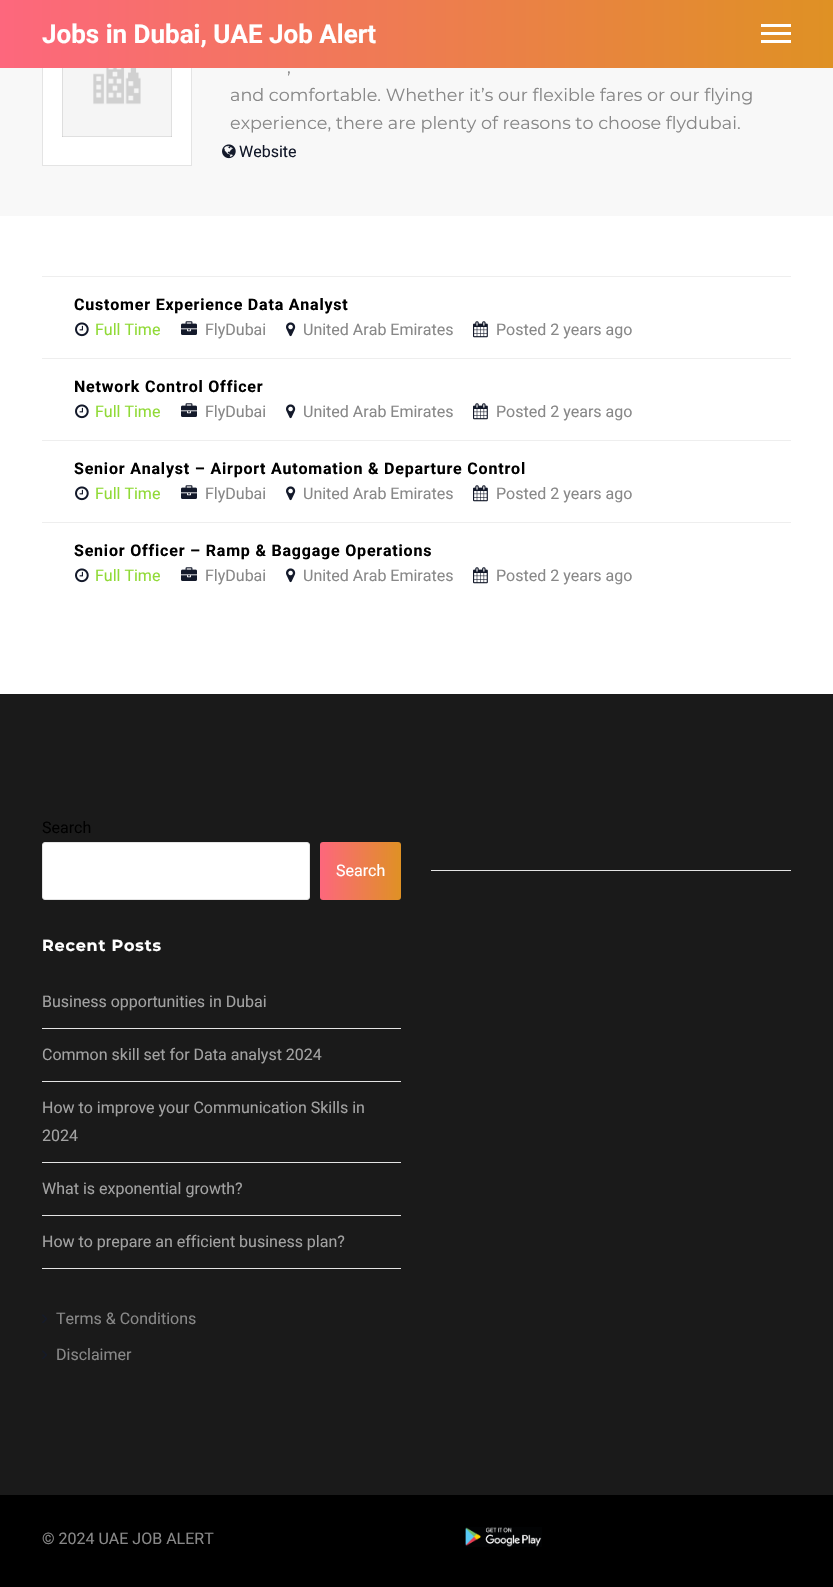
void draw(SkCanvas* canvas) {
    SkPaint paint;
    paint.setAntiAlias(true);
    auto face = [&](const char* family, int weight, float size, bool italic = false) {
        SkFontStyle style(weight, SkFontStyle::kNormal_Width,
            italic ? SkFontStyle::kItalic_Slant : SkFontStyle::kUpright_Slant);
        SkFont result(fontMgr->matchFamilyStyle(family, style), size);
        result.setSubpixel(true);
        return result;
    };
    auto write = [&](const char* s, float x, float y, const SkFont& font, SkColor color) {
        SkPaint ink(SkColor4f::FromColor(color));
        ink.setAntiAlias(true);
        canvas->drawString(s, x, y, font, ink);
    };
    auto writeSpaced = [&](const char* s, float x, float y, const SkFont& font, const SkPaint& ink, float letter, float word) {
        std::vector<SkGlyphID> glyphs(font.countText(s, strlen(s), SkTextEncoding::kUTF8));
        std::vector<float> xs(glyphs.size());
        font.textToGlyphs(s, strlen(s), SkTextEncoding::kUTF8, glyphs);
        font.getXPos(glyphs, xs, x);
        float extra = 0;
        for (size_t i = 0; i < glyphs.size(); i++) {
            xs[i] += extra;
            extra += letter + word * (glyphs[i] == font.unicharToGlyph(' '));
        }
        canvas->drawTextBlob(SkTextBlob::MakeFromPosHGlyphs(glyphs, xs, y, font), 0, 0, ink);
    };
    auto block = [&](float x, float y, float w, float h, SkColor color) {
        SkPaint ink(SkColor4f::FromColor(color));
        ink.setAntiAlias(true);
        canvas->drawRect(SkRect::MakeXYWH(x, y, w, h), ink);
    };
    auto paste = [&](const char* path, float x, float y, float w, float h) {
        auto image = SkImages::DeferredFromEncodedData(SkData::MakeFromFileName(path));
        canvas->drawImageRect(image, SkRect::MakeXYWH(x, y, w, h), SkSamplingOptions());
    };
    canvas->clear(SK_ColorWHITE);
    block(0, 68, 833, 148, SkColorSetRGB(248, 248, 248));
    block(43, 68, 148, 97, SK_ColorWHITE);
    paint.setStyle(SkPaint::kStroke_Style);
    paint.setStrokeWidth(1);
    paint.setColor(SkColorSetRGB(228, 228, 228));
    canvas->drawRect(SkRect::MakeXYWH(42.5f, -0.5f, 149, 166), paint);
    paint.setStyle(SkPaint::kFill_Style);
    {
        const SkColor colors[] = {SkColorSetRGB(253, 103, 125), SkColorSetRGB(223, 145, 36)};
        const float stops[] = {0, 1};
        const SkPoint ends[] = {{0, 34}, {833, 34}};
        paint.setShader(SkGradientShader::MakeLinear(ends, colors, stops, 2, SkTileMode::kClamp));
        paint.setAlpha(255);
    }
    canvas->drawRect(SkRect::MakeXYWH(0, 0, 833, 68), paint);
    auto kFont1 = face("Roboto", 700, 26);
    write("Jobs in Dubai, UAE Job Alert", 42, 43, kFont1, SK_ColorWHITE);
    block(761, 24, 30, 3, SK_ColorWHITE);
    block(761, 32, 30, 3, SK_ColorWHITE);
    block(761, 40, 30, 3, SK_ColorWHITE);
    paste("pic1.png", 62, 68, 110, 69);
    auto kFont2 = face("Montserrat", 100, 17.6f);
    write(",", 287, 73, kFont2, SkColorSetRGB(136, 136, 136));
    write("and comfortable. Whether it’s our flexible fares or our flying", 230, 101, kFont2, SkColorSetRGB(136, 136, 136));
    write("experience, there are plenty of reasons to choose flydubai.", 230, 129, kFont2, SkColorSetRGB(136, 136, 136));
    paste("pic2.png", 222, 144, 14, 15);
    auto kFont3 = face("Roboto", 400, 16);
    write("Website", 239, 157, kFont3, SkColorSetRGB(19, 25, 42));
    block(42, 276, 749, 1, SkColorSetRGB(238, 238, 238));
    block(42, 358, 749, 1, SkColorSetRGB(238, 238, 238));
    auto kFont4 = face("Roboto", 700, 16);
    paint.setShader(nullptr);
    paint.setColor(SK_ColorBLACK);
    writeSpaced("Customer Experience Data Analyst", 74, 310, kFont4, paint, 0.8f, 0);
    paste("pic3.png", 75, 322, 14, 15);
    write("Full Time", 95, 335, kFont3, SkColorSetRGB(144, 218, 54));
    paste("pic4.png", 181, 321, 16, 14);
    write("FlyDubai", 205, 335, kFont3, SkColorSetRGB(136, 136, 136));
    paste("pic5.png", 286, 322, 10, 15);
    write("United Arab Emirates", 303, 335, kFont3, SkColorSetRGB(136, 136, 136));
    paste("pic6.png", 473, 321, 15, 17);
    write("Posted 2 years ago", 496, 335, kFont3, SkColorSetRGB(136, 136, 136));
    block(42, 440, 749, 1, SkColorSetRGB(238, 238, 238));
    writeSpaced("Network Control Officer", 74, 392, kFont4, paint, 0.8f, 0);
    paste("pic3.png", 75, 404, 14, 15);
    write("Full Time", 95, 417, kFont3, SkColorSetRGB(144, 218, 54));
    paste("pic4.png", 181, 403, 16, 14);
    write("FlyDubai", 205, 417, kFont3, SkColorSetRGB(136, 136, 136));
    paste("pic5.png", 286, 404, 10, 15);
    write("United Arab Emirates", 303, 417, kFont3, SkColorSetRGB(136, 136, 136));
    paste("pic6.png", 473, 403, 15, 17);
    write("Posted 2 years ago", 496, 417, kFont3, SkColorSetRGB(136, 136, 136));
    block(42, 522, 749, 1, SkColorSetRGB(238, 238, 238));
    writeSpaced("Senior Analyst – Airport Automation & Departure Control", 74, 474, kFont4, paint, 0.8f, 0);
    paste("pic3.png", 75, 486, 14, 15);
    write("Full Time", 95, 499, kFont3, SkColorSetRGB(144, 218, 54));
    paste("pic4.png", 181, 485, 16, 14);
    write("FlyDubai", 205, 499, kFont3, SkColorSetRGB(136, 136, 136));
    paste("pic5.png", 286, 486, 10, 15);
    write("United Arab Emirates", 303, 499, kFont3, SkColorSetRGB(136, 136, 136));
    paste("pic6.png", 473, 485, 15, 17);
    write("Posted 2 years ago", 496, 499, kFont3, SkColorSetRGB(136, 136, 136));
    writeSpaced("Senior Officer – Ramp & Baggage Operations", 74, 556, kFont4, paint, 0.8f, 0);
    paste("pic3.png", 75, 568, 14, 15);
    write("Full Time", 95, 581, kFont3, SkColorSetRGB(144, 218, 54));
    paste("pic4.png", 181, 567, 16, 14);
    write("FlyDubai", 205, 581, kFont3, SkColorSetRGB(136, 136, 136));
    paste("pic5.png", 286, 568, 10, 15);
    write("United Arab Emirates", 303, 581, kFont3, SkColorSetRGB(136, 136, 136));
    paste("pic6.png", 473, 567, 15, 17);
    write("Posted 2 years ago", 496, 581, kFont3, SkColorSetRGB(136, 136, 136));
    block(0, 694, 833, 801, SkColorSetRGB(26, 26, 26));
    write("Search", 42, 833, kFont3, SK_ColorBLACK);
    paint.setColor(SK_ColorWHITE);
    canvas->drawRoundRect(SkRect::MakeXYWH(42.5f, 842.5f, 267, 57), 2.5f, 2.5f, paint);
    paint.setStyle(SkPaint::kStroke_Style);
    paint.setColor(SkColorSetRGB(228, 228, 228));
    canvas->drawRoundRect(SkRect::MakeXYWH(42.5f, 842.5f, 267, 57), 2.5f, 2.5f, paint);
    paint.setStyle(SkPaint::kFill_Style);
    {
        const SkColor colors[] = {SkColorSetRGB(253, 103, 125), SkColorSetRGB(223, 145, 36)};
        const float stops[] = {0, 1};
        const SkPoint ends[] = {{320, 871}, {401, 871}};
        paint.setShader(SkGradientShader::MakeLinear(ends, colors, stops, 2, SkTileMode::kClamp));
        paint.setAlpha(255);
    }
    canvas->drawRoundRect(SkRect::MakeXYWH(320, 842, 81, 58), 3, 3, paint);
    write("Search", 336, 876, kFont3, SK_ColorWHITE);
    auto kFont5 = face("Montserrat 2", 100, 16);
    paint.setShader(nullptr);
    paint.setColor(SK_ColorWHITE);
    writeSpaced("Recent Posts", 42, 951, kFont5, paint, 0.8f, 0);
    block(42, 1028, 359, 1, SkColorSetRGB(228, 228, 228));
    write("Business opportunities in Dubai", 42, 1007, kFont3, SkColorSetRGB(162, 162, 162));
    block(42, 1081, 359, 1, SkColorSetRGB(228, 228, 228));
    write("Common skill set for Data analyst 2024", 42, 1060, kFont3, SkColorSetRGB(162, 162, 162));
    block(42, 1162, 359, 1, SkColorSetRGB(228, 228, 228));
    write("How to improve your Communication Skills in", 42, 1113, kFont3, SkColorSetRGB(162, 162, 162));
    write("2024", 42, 1141, kFont3, SkColorSetRGB(162, 162, 162));
    block(42, 1215, 359, 1, SkColorSetRGB(228, 228, 228));
    write("What is exponential growth?", 42, 1194, kFont3, SkColorSetRGB(162, 162, 162));
    block(42, 1268, 359, 1, SkColorSetRGB(228, 228, 228));
    write("How to prepare an efficient business plan?", 42, 1247, kFont3, SkColorSetRGB(162, 162, 162));
    paste("pic7.png", 42, 1314, 5, 9);
    write("Terms & Conditions", 56, 1324, kFont3, SkColorSetRGB(136, 136, 136));
    paste("pic7.png", 42, 1350, 5, 9);
    write("Disclaimer", 56, 1360, kFont3, SkColorSetRGB(136, 136, 136));
    block(431, 870, 360, 1, SkColorSetRGB(228, 228, 228));
    block(0, 1495, 833, 92, SK_ColorBLACK);
    write("© 2024 UAE JOB ALERT", 42, 1544, kFont3, SkColorSetRGB(136, 136, 136));
    paste("pic8.png", 465, 1527, 77, 20);
}
